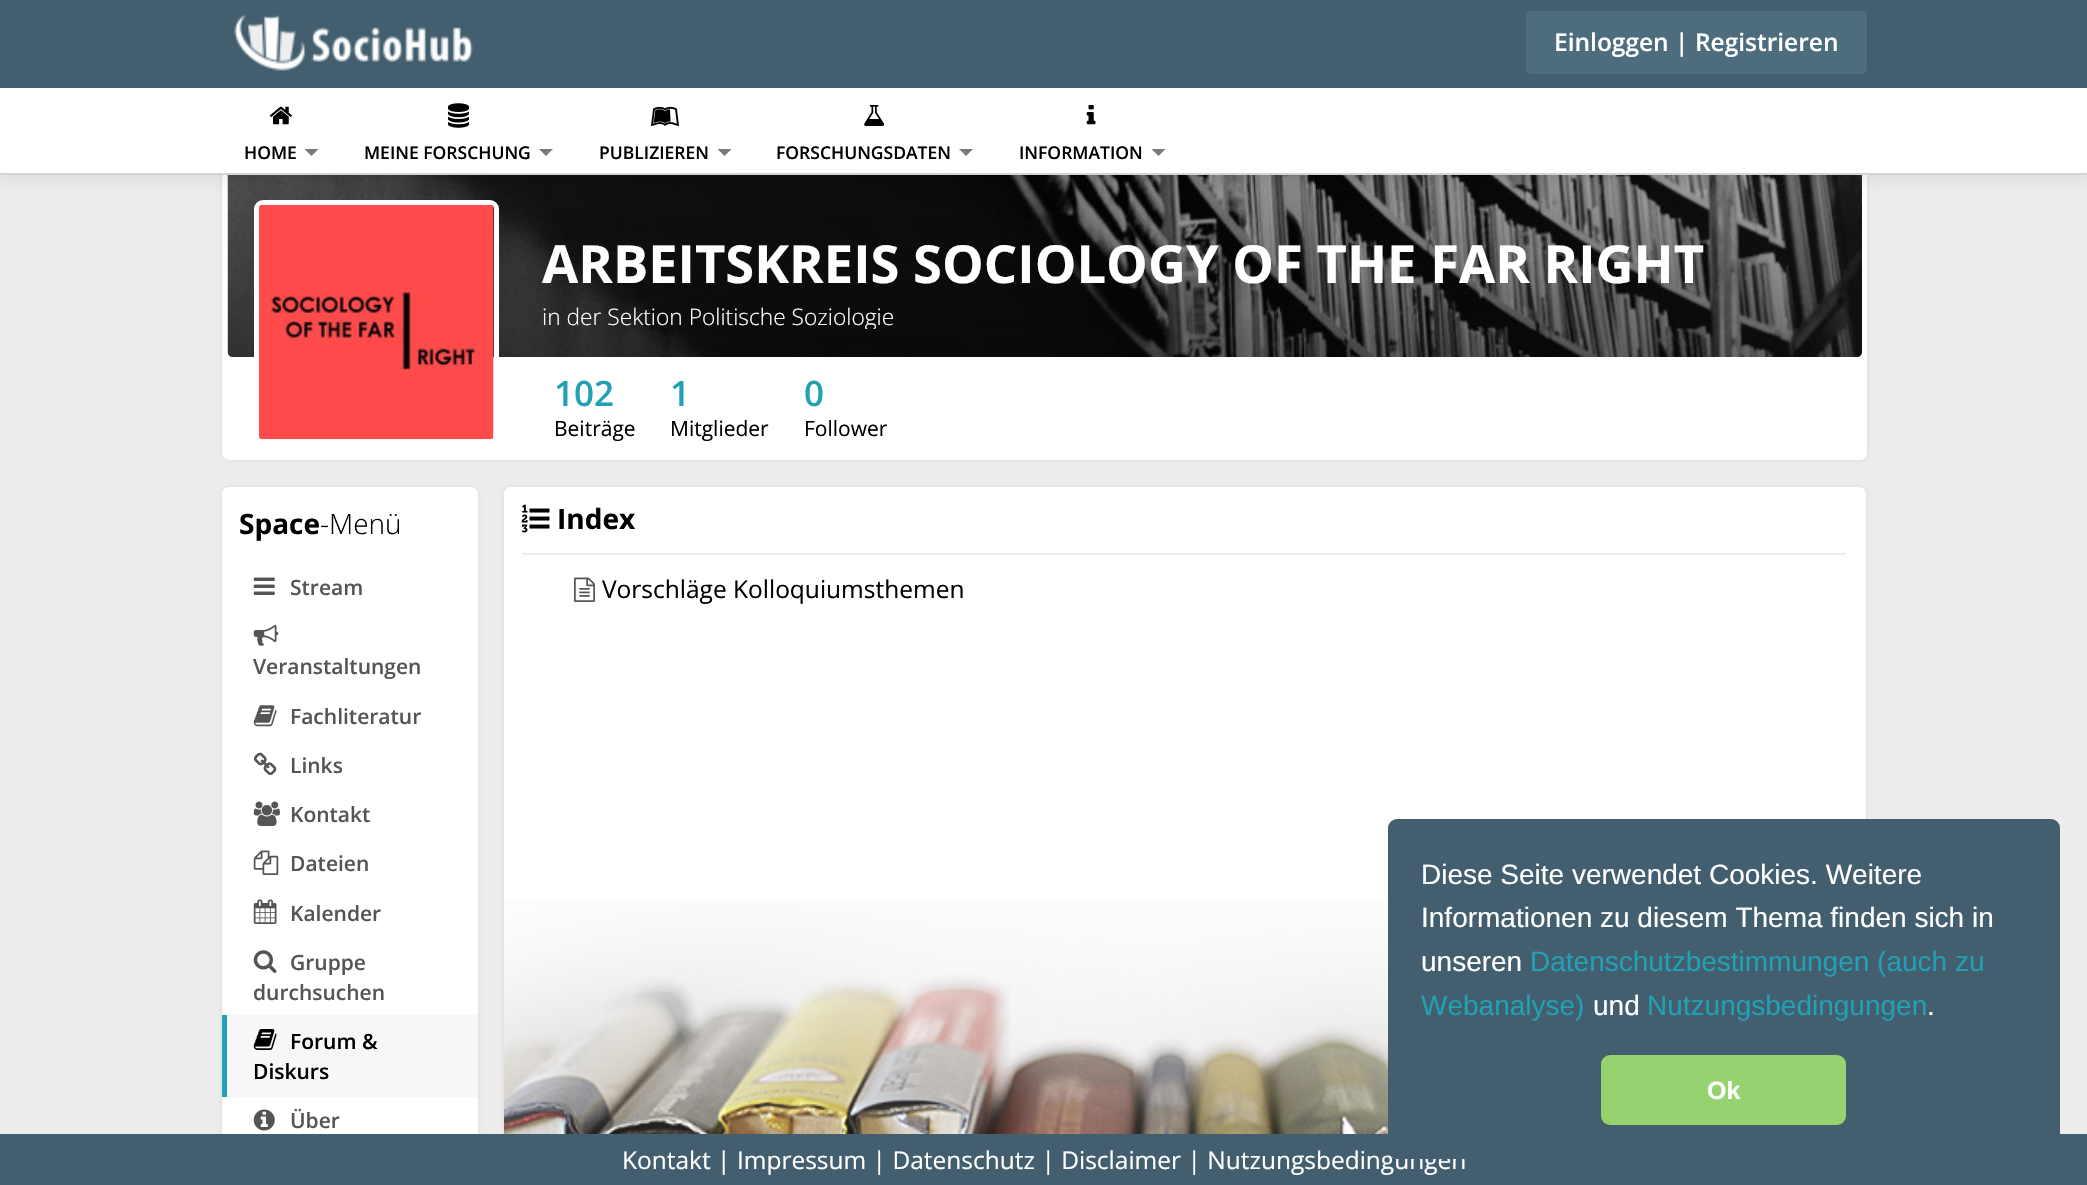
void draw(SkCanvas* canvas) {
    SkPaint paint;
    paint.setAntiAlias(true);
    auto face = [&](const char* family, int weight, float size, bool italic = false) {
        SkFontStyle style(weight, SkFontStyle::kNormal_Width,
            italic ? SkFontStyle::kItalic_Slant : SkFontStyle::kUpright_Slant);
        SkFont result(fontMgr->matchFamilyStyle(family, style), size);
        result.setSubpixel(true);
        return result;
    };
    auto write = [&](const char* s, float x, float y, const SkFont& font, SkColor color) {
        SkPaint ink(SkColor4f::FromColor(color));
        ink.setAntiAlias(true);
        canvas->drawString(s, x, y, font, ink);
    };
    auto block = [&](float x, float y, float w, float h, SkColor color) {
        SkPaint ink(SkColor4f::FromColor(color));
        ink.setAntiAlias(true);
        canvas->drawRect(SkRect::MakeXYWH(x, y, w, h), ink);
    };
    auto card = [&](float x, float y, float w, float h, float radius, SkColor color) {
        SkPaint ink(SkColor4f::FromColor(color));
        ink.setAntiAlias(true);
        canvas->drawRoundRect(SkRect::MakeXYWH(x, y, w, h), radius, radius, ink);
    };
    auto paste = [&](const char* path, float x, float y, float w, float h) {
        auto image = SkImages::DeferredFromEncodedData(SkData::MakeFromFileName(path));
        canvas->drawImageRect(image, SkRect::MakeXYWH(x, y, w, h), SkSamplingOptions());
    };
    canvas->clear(SkColorSetRGB(237, 237, 237));
    paint.setColor(SkColorSetRGB(218, 218, 218));
    paint.setMaskFilter(SkMaskFilter::MakeBlur(kNormal_SkBlurStyle, 2.5f));
    canvas->drawRoundRect(SkRect::MakeXYWH(222, 74, 1645, 386), 7, 7, paint);
    paint.setMaskFilter(nullptr);
    card(222, 74, 1645, 386, 7, SK_ColorWHITE);
    paint.setStyle(SkPaint::kStroke_Style);
    paint.setStrokeWidth(5);
    paint.setColor(SK_ColorWHITE);
    canvas->drawRect(SkRect::MakeXYWH(224.5f, 76.5f, 1640, 283), paint);
    paste("pic8.png", 227, 175, 1635, 182);
    paint.setStyle(SkPaint::kFill_Style);
    {
        const SkColor colors[] = {SkColorSetARGB(0, 0, 0, 0), SkColorSetARGB(0, 0, 0, 0), SkColorSetARGB(97, 0, 0, 0)};
        const float stops[] = {0, 0.01f, 1};
        const SkPoint ends[] = {{1045, 182}, {1045, 357}};
        paint.setShader(SkGradientShader::MakeLinear(ends, colors, stops, 3, SkTileMode::kClamp));
        paint.setAlpha(255);
    }
    canvas->drawPath(SkPathBuilder().moveTo(228, 182).lineTo(1862, 182).lineTo(1862, 352).cubicTo(1862, 355, 1860, 357, 1857, 357).lineTo(233, 357).cubicTo(230, 357, 228, 355, 228, 352).close().detach(), paint);
    paint.setStyle(SkPaint::kStroke_Style);
    paint.setShader(nullptr);
    paint.setColor(SK_ColorWHITE);
    canvas->drawRoundRect(SkRect::MakeXYWH(256.5f, 202.5f, 240, 240), 6.5f, 6.5f, paint);
    paste("pic7.png", 259, 204, 235, 236);
    paint.setStyle(SkPaint::kFill_Style);
    paint.setColor(SkColorSetARGB(26, 0, 0, 0));
    paint.setMaskFilter(SkMaskFilter::MakeBlur(kNormal_SkBlurStyle, 9));
    canvas->drawRect(SkRect::MakeXYWH(0, 89, 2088, 88), paint);
    paint.setMaskFilter(nullptr);
    block(0, 0, 2087, 88, SkColorSetRGB(67, 95, 111));
    paste("pic1.png", 234, 14, 239, 57);
    card(1526, 11, 341, 63, 5, SkColorSetRGB(77, 109, 127));
    auto kFont1 = face("Open Sans", 600, 24.5f);
    write("Einloggen | Registrieren", 1554, 51, kFont1, SK_ColorWHITE);
    block(0, 88, 2087, 85, SK_ColorWHITE);
    block(0, 173, 2087, 2, SkColorSetRGB(212, 212, 212));
    paste("pic2.png", 269, 106, 23, 19);
    auto kFont2 = face("Open Sans", 600, 17.5f);
    write("HOME", 244, 159, kFont2, SK_ColorBLACK);
    paint.setColor(SkColorSetRGB(122, 122, 122));
    canvas->drawPath(SkPathBuilder().moveTo(304.5f, 149).lineTo(318.5f, 149).lineTo(311.5f, 156).close().detach(), paint);
    paste("pic3.png", 448, 103, 21, 25);
    write("MEINE FORSCHUNG", 364, 159, kFont2, SK_ColorBLACK);
    canvas->drawPath(SkPathBuilder().moveTo(539, 149).lineTo(553, 149).lineTo(546, 156).close().detach(), paint);
    paste("pic4.png", 651, 106, 28, 20);
    write("PUBLIZIEREN", 599, 159, kFont2, SK_ColorBLACK);
    canvas->drawPath(SkPathBuilder().moveTo(717.5f, 149).lineTo(731.5f, 149).lineTo(724.5f, 156).close().detach(), paint);
    paste("pic5.png", 864, 105, 21, 21);
    write("FORSCHUNGSDATEN", 776, 159, kFont2, SK_ColorBLACK);
    canvas->drawPath(SkPathBuilder().moveTo(959, 149).lineTo(973, 149).lineTo(966, 156).close().detach(), paint);
    paste("pic6.png", 1086, 105, 10, 20);
    write("INFORMATION", 1019, 159, kFont2, SK_ColorBLACK);
    canvas->drawPath(SkPathBuilder().moveTo(1151.5f, 149).lineTo(1165.5f, 149).lineTo(1158.5f, 156).close().detach(), paint);
    auto kFont3 = face("Open Sans", 700, 52.5f);
    write("ARBEITSKREIS SOCIOLOGY OF THE FAR RIGHT", 542, 283, kFont3, SK_ColorWHITE);
    canvas->save();
    canvas->clipRect(SkRect::MakeXYWH(543, 305, 1050, 24));
    auto kFont4 = face("Open Sans", 300, 22.75f);
    write("in der Sektion Politische Soziologie", 542, 325, kFont4, SK_ColorWHITE);
    canvas->restore();
    auto kFont5 = face("Open Sans", 600, 35);
    write("102", 554, 406, kFont5, SkColorSetRGB(33, 161, 179));
    auto kFont6 = face("Open Sans", 400, 21);
    write("Beiträge", 554, 436, kFont6, SK_ColorBLACK);
    write("1", 670, 406, kFont5, SkColorSetRGB(33, 161, 179));
    write("Mitglieder", 670, 436, kFont6, SK_ColorBLACK);
    write("0", 804, 406, kFont5, SkColorSetRGB(33, 161, 179));
    write("Follower", 804, 436, kFont6, SK_ColorBLACK);
    paint.setColor(SkColorSetRGB(218, 218, 218));
    paint.setMaskFilter(SkMaskFilter::MakeBlur(kNormal_SkBlurStyle, 2.5f));
    canvas->drawRoundRect(SkRect::MakeXYWH(222, 487, 256, 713), 7, 7, paint);
    paint.setMaskFilter(nullptr);
    card(222, 487, 256, 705, 7, SK_ColorWHITE);
    card(222, 487, 256, 75, 7, SK_ColorWHITE);
    auto kFont7 = face("Open Sans", 700, 28);
    write("Space", 239, 534, kFont7, SK_ColorBLACK);
    auto kFont8 = face("Open Sans", 300, 28);
    write("-Menü", 320, 534, kFont8, SK_ColorBLACK);
    paste("pic9.png", 253, 577, 22, 18);
    auto kFont9 = face("Open Sans", 600, 21);
    write("Stream", 290, 595, kFont9, SkColorSetRGB(85, 85, 85));
    paste("pic10.png", 253, 624, 26, 22);
    write("Veranstaltungen", 253, 674, kFont9, SkColorSetRGB(85, 85, 85));
    paste("pic11.png", 253, 705, 24, 22);
    write("Fachliteratur", 290, 724, kFont9, SkColorSetRGB(85, 85, 85));
    paste("pic12.png", 254, 752, 23, 23);
    write("Links", 290, 773, kFont9, SkColorSetRGB(85, 85, 85));
    paste("pic13.png", 253, 801, 27, 25);
    write("Kontakt", 290, 822, kFont9, SkColorSetRGB(85, 85, 85));
    paste("pic14.png", 253, 850, 26, 25);
    write("Dateien", 290, 871, kFont9, SkColorSetRGB(85, 85, 85));
    paste("pic15.png", 253, 899, 24, 25);
    write("Kalender", 290, 921, kFont9, SkColorSetRGB(85, 85, 85));
    paste("pic16.png", 253, 950, 24, 23);
    write("Gruppe", 290, 970, kFont9, SkColorSetRGB(85, 85, 85));
    write("durchsuchen", 253, 1000, kFont9, SkColorSetRGB(85, 85, 85));
    block(227, 1015, 251, 82, SkColorSetRGB(247, 247, 247));
    block(222, 1015, 5, 82, SkColorSetRGB(33, 161, 179));
    paste("pic17.png", 253, 1029, 24, 21);
    write("Forum &", 290, 1049, kFont9, SK_ColorBLACK);
    write("Diskurs", 253, 1079, kFont9, SK_ColorBLACK);
    paste("pic18.png", 253, 1109, 22, 22);
    write("Über", 290, 1128, kFont9, SkColorSetRGB(85, 85, 85));
    paint.setMaskFilter(SkMaskFilter::MakeBlur(kNormal_SkBlurStyle, 2.5f));
    canvas->drawRoundRect(SkRect::MakeXYWH(504, 487, 1362, 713), 7, 7, paint);
    paint.setMaskFilter(nullptr);
    card(504, 487, 1362, 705, 7, SK_ColorWHITE);
    paste("pic19.png", 504, 900, 884, 234);
    paste("pic20.png", 521, 504, 29, 29);
    write("Index", 557, 529, kFont7, SK_ColorBLACK);
    block(522, 553, 1324, 2, SkColorSetRGB(238, 238, 238));
    paste("pic21.png", 574, 577, 21, 25);
    auto kFont10 = face("Open Sans", 400, 24.5f);
    write("Vorschläge Kolloquiumsthemen", 602, 598, kFont10, SK_ColorBLACK);
    block(0, 1134, 2087, 51, SkColorSetRGB(67, 95, 111));
    write("Kontakt | Impressum | Datenschutz | Disclaimer | Nutzungsbedingungen", 622, 1169, kFont10, SK_ColorWHITE);
    card(1388, 819, 672, 340, 9, SkColorSetRGB(67, 95, 111));
    auto kFont11 = face("Liberation Sans", 400, 28);
    write("Diese Seite verwendet Cookies. Weitere", 1421, 884, kFont11, SK_ColorWHITE);
    write("Informationen zu diesem Thema finden sich in", 1421, 927, kFont11, SK_ColorWHITE);
    write("unseren", 1421, 971, kFont11, SK_ColorWHITE);
    write("Datenschutzbestimmungen (auch zu", 1530, 971, kFont11, SkColorSetRGB(33, 161, 179));
    write("Webanalyse)", 1421, 1015, kFont11, SkColorSetRGB(33, 161, 179));
    write("und", 1593, 1015, kFont11, SK_ColorWHITE);
    write("Nutzungsbedingungen", 1647, 1015, kFont11, SkColorSetRGB(33, 161, 179));
    write(".", 1927, 1015, kFont11, SK_ColorWHITE);
    card(1601, 1055, 245, 70, 9, SkColorSetRGB(151, 210, 113));
    auto kFont12 = face("Liberation Sans", 700, 25);
    write("Ok", 1707, 1099, kFont12, SK_ColorWHITE);
}
